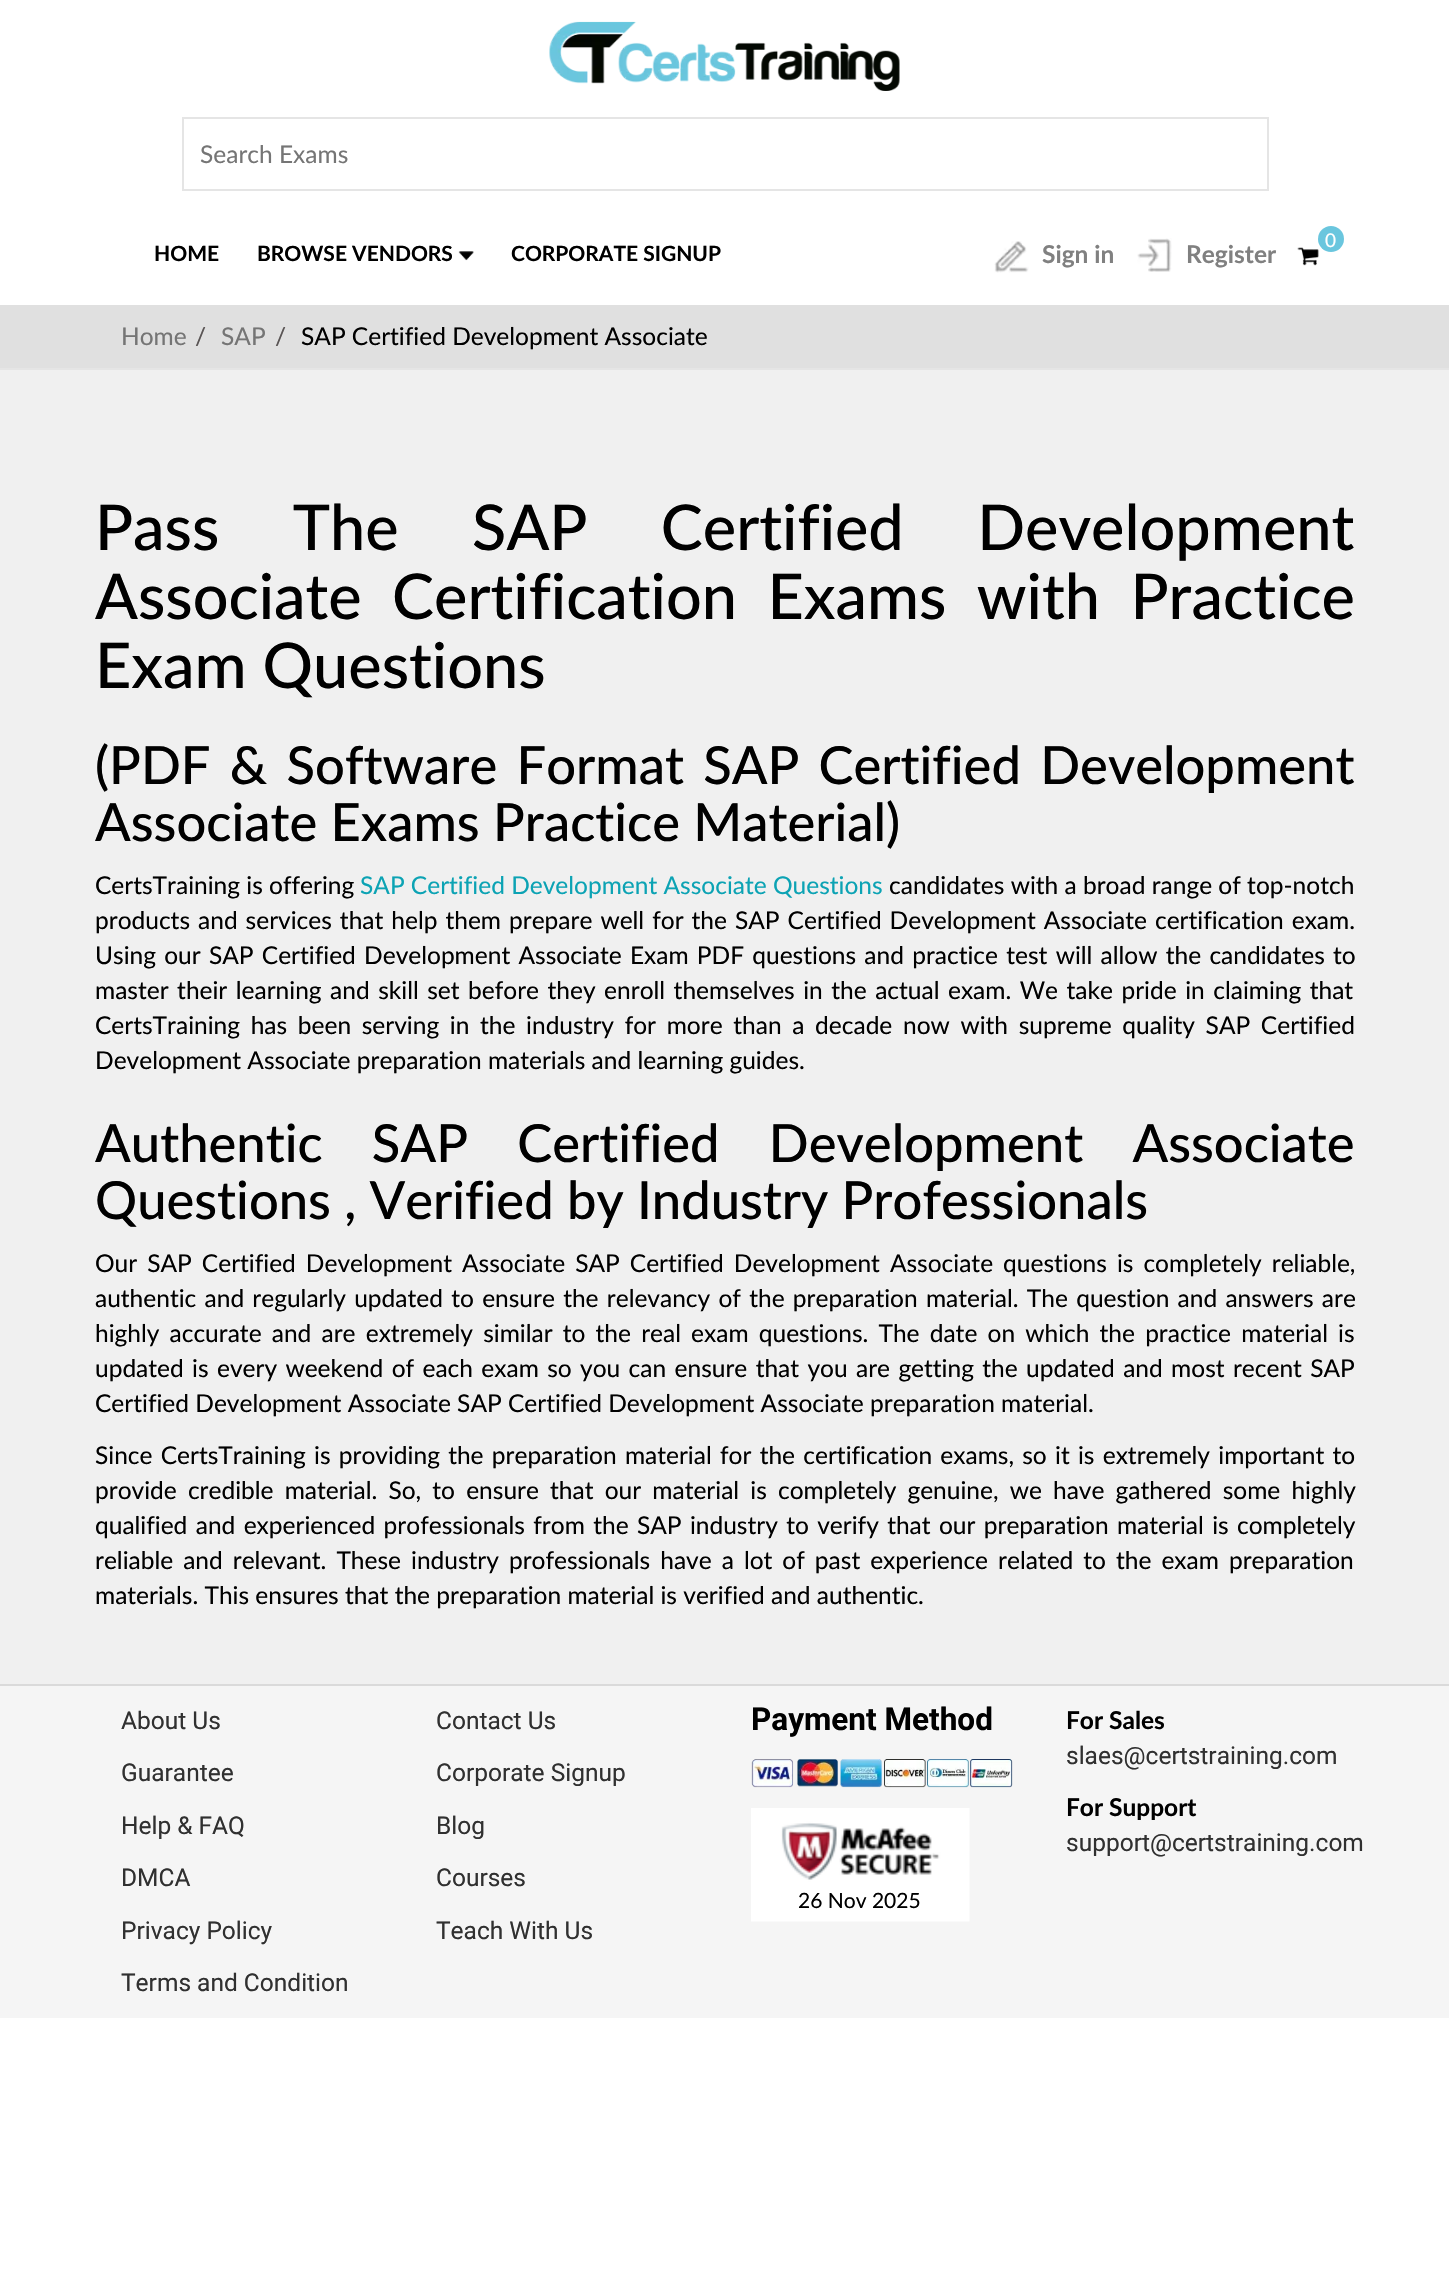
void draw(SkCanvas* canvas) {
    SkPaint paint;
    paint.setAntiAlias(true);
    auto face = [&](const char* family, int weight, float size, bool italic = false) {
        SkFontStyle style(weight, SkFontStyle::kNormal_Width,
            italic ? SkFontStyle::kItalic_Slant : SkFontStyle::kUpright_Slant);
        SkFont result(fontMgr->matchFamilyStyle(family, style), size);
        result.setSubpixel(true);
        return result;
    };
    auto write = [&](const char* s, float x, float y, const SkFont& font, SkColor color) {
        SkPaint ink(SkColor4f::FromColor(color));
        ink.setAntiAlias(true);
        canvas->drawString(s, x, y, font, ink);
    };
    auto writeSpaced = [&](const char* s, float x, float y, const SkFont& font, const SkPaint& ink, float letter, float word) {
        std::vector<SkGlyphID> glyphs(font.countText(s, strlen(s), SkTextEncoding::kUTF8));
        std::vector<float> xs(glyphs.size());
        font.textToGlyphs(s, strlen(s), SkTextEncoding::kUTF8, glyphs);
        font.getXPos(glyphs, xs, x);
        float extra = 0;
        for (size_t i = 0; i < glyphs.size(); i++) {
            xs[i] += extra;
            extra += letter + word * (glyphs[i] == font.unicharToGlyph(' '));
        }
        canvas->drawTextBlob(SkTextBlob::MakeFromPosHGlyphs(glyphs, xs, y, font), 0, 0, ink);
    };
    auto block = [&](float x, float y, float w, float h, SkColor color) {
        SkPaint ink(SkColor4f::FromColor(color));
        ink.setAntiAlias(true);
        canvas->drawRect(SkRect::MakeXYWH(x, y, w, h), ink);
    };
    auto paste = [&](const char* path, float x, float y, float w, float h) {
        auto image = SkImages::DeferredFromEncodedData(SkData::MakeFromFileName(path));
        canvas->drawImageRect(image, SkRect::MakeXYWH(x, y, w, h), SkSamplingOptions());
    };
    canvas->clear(SK_ColorWHITE);
    paste("pic1.png", 549, 21, 351, 70);
    paint.setStyle(SkPaint::kStroke_Style);
    paint.setStrokeWidth(2);
    paint.setColor(SkColorSetRGB(229, 229, 229));
    canvas->drawRect(SkRect::MakeXYWH(183, 118, 1085, 72), paint);
    auto kFont1 = face("Lato", 400, 24.5f);
    write("Search Exams", 200, 163, kFont1, SkColorSetRGB(117, 117, 117));
    auto kFont2 = face("Lato", 700, 21);
    write("HOME", 154, 261, kFont2, SK_ColorBLACK);
    write("BROWSE VENDORS", 257, 261, kFont2, SK_ColorBLACK);
    paste("pic2.png", 458, 251, 16, 10);
    write("CORPORATE SIGNUP", 511, 261, kFont2, SK_ColorBLACK);
    paste("pic3.png", 1297, 247, 22, 19);
    paint.setStyle(SkPaint::kFill_Style);
    paint.setColor(SkColorSetRGB(106, 198, 222));
    canvas->drawCircle(1331, 239, 13, paint);
    auto kFont3 = face("Lato", 400, 19);
    write("0", 1325, 247, kFont3, SK_ColorWHITE);
    paste("pic4.png", 994, 241, 35, 32);
    auto kFont4 = face("Lato", 700, 24.5f);
    write("Sign in", 1042, 263, kFont4, SkColorSetRGB(128, 128, 128));
    paste("pic5.png", 1137, 238, 35, 34);
    write("Register", 1186, 263, kFont4, SkColorSetRGB(128, 128, 128));
    block(0, 305, 1449, 63, SkColorSetRGB(224, 224, 224));
    write("Home", 121, 345, kFont1, SkColorSetRGB(117, 117, 117));
    write("/", 195, 345, kFont1, SkColorSetRGB(90, 85, 85));
    write("SAP", 221, 345, kFont1, SkColorSetRGB(117, 117, 117));
    write("/", 275, 345, kFont1, SkColorSetRGB(90, 85, 85));
    write("SAP Certified Development Associate", 301, 345, kFont1, SK_ColorBLACK);
    block(0, 370, 1449, 1314, SkColorSetRGB(240, 240, 240));
    block(0, 368, 1449, 2, SkColorSetRGB(229, 229, 229));
    auto kFont5 = face("Lato", 500, 63);
    paint.setColor(SK_ColorBLACK);
    writeSpaced("Pass The SAP Certified Development", 95, 550, kFont5, paint, 0, 57.5f);
    writeSpaced("Associate Certification Exams with Practice", 95, 619, kFont5, paint, 0, 14.5f);
    write("Exam Questions", 95, 688, kFont5, SK_ColorBLACK);
    auto kFont6 = face("Lato", 500, 52.5f);
    writeSpaced("(PDF & Software Format SAP Certified Development", 95, 784, kFont6, paint, 0, 6);
    write("Associate Exams Practice Material)", 95, 841, kFont6, SK_ColorBLACK);
    write("CertsTraining is offering", 95, 894, kFont1, SK_ColorBLACK);
    write("SAP Certified Development Associate Questions", 360, 894, kFont1, SkColorSetRGB(12, 163, 180));
    write("candidates with a broad range of top-notch", 889, 894, kFont1, SK_ColorBLACK);
    writeSpaced("products and services that help them prepare well for the SAP Certified Development Associate certification exam.", 95, 929, kFont1, paint, 0, 1.75f);
    writeSpaced("Using our SAP Certified Development Associate Exam PDF questions and practice test will allow the candidates to", 95, 964, kFont1, paint, 0, 2);
    writeSpaced("master their learning and skill set before they enroll themselves in the actual exam. We take pride in claiming that", 95, 999, kFont1, paint, 0, 2.25f);
    writeSpaced("CertsTraining has been serving in the industry for more than a decade now with supreme quality SAP Certified", 95, 1034, kFont1, paint, 0, 4.4f);
    write("Development Associate preparation materials and learning guides.", 95, 1069, kFont1, SK_ColorBLACK);
    writeSpaced("Authentic SAP Certified Development Associate", 95, 1162, kFont6, paint, 0, 36);
    write("Questions , Verified by Industry Professionals", 95, 1219, kFont6, SK_ColorBLACK);
    writeSpaced("Our SAP Certified Development Associate SAP Certified Development Associate questions is completely reliable,", 95, 1272, kFont1, paint, 0, 3.75f);
    writeSpaced("authentic and regularly updated to ensure the relevancy of the preparation material. The question and answers are", 95, 1307, kFont1, paint, 0, 2);
    writeSpaced("highly accurate and are extremely similar to the real exam questions. The date on which the practice material is", 95, 1342, kFont1, paint, 0, 3.9f);
    writeSpaced("updated is every weekend of each exam so you can ensure that you are getting the updated and most recent SAP", 95, 1377, kFont1, paint, 0, 2.1f);
    write("Certified Development Associate SAP Certified Development Associate preparation material.", 95, 1412, kFont1, SK_ColorBLACK);
    writeSpaced("Since CertsTraining is providing the preparation material for the certification exams, so it is extremely important to", 95, 1464, kFont1, paint, 0, 2);
    writeSpaced("provide credible material. So, to ensure that our material is completely genuine, we have gathered some highly", 95, 1499, kFont1, paint, 0, 4.9f);
    writeSpaced("qualified and experienced professionals from the SAP industry to verify that our preparation material is completely", 95, 1534, kFont1, paint, 0, 2.1f);
    writeSpaced("reliable and relevant. These industry professionals have a lot of past experience related to the exam preparation", 95, 1569, kFont1, paint, 0, 3.75f);
    write("materials. This ensures that the preparation material is verified and authentic.", 95, 1604, kFont1, SK_ColorBLACK);
    block(0, 1686, 1449, 332, SkColorSetRGB(245, 245, 245));
    block(0, 1684, 1449, 2, SkColorSetRGB(218, 218, 218));
    auto kFont7 = face("Roboto", 400, 24.5f);
    write("About Us", 121, 1729, kFont7, SkColorSetRGB(48, 48, 48));
    write("Guarantee", 121, 1781, kFont7, SkColorSetRGB(48, 48, 48));
    write("Help & FAQ", 121, 1834, kFont7, SkColorSetRGB(48, 48, 48));
    write("DMCA", 121, 1886, kFont7, SkColorSetRGB(48, 48, 48));
    write("Privacy Policy", 121, 1939, kFont7, SkColorSetRGB(48, 48, 48));
    write("Terms and Condition", 121, 1991, kFont7, SkColorSetRGB(48, 48, 48));
    write("Contact Us", 436, 1729, kFont7, SkColorSetRGB(48, 48, 48));
    write("Corporate Signup", 436, 1781, kFont7, SkColorSetRGB(48, 48, 48));
    write("Blog", 436, 1834, kFont7, SkColorSetRGB(48, 48, 48));
    write("Courses", 436, 1886, kFont7, SkColorSetRGB(48, 48, 48));
    write("Teach With Us", 436, 1939, kFont7, SkColorSetRGB(48, 48, 48));
    auto kFont8 = face("Roboto", 700, 31.5f);
    write("Payment Method", 751, 1730, kFont8, SK_ColorBLACK);
    paste("pic6.png", 751, 1759, 262, 29);
    paste("pic7.png", 751, 1808, 219, 114);
    auto kFont9 = face("Lato", 400, 21);
    write("26 Nov 2025", 798, 1908, kFont9, SK_ColorBLACK);
    write("For Sales", 1066, 1729, kFont4, SK_ColorBLACK);
    write("slaes@certstraining.com", 1066, 1764, kFont7, SkColorSetRGB(48, 48, 48));
    write("For Support", 1066, 1816, kFont4, SK_ColorBLACK);
    write("support@certstraining.com", 1066, 1851, kFont7, SkColorSetRGB(48, 48, 48));
}
